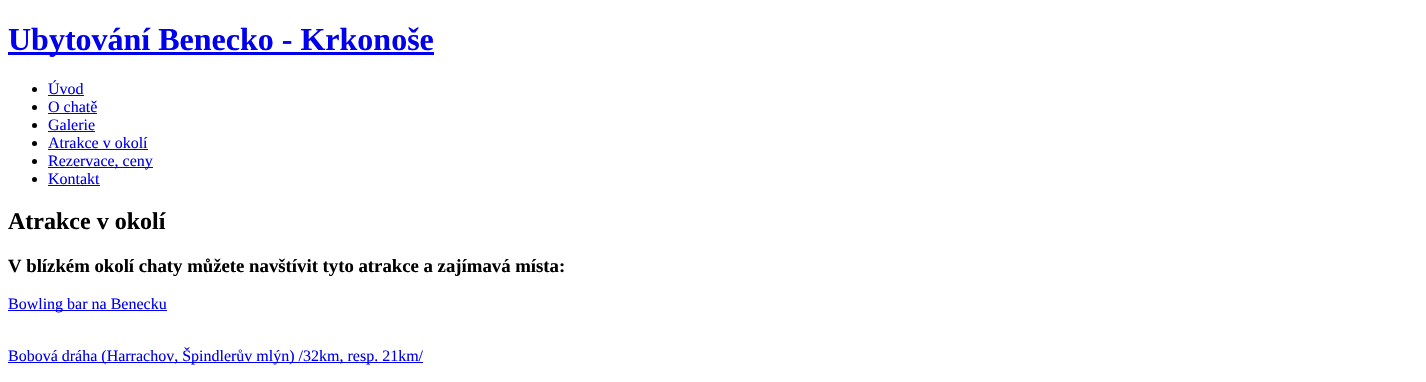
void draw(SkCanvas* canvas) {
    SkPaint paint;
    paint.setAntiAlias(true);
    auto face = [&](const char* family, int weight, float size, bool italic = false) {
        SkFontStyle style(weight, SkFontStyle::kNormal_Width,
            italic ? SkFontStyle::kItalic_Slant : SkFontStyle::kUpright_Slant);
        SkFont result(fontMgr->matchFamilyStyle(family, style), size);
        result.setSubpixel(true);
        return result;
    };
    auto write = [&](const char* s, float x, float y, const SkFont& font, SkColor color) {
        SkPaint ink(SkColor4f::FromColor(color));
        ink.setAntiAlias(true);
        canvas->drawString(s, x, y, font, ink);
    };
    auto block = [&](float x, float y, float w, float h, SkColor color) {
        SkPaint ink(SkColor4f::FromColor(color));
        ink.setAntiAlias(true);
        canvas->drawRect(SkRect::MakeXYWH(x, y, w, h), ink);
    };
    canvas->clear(SK_ColorWHITE);
    block(8, 52, 426, 3, SkColorSetRGB(0, 0, 238));
    auto kFont1 = face("Liberation Serif", 700, 32);
    write("Ubytování Benecko - Krkonoše", 8, 50, kFont1, SkColorSetRGB(0, 0, 238));
    paint.setColor(SK_ColorBLACK);
    canvas->drawCircle(34.5f, 89.5f, 2.5f, paint);
    auto kFont2 = face("Liberation Serif", 400, 16);
    write("Úvod", 48, 94, kFont2, SkColorSetRGB(0, 0, 238));
    block(48, 95, 36, 1, SkColorSetRGB(0, 0, 238));
    canvas->drawCircle(34.5f, 107.5f, 2.5f, paint);
    write("O chatě", 48, 112, kFont2, SkColorSetRGB(0, 0, 238));
    block(48, 113, 49, 1, SkColorSetRGB(0, 0, 238));
    canvas->drawCircle(34.5f, 125.5f, 2.5f, paint);
    write("Galerie", 48, 130, kFont2, SkColorSetRGB(0, 0, 238));
    block(48, 131, 47, 1, SkColorSetRGB(0, 0, 238));
    canvas->drawCircle(34.5f, 143.5f, 2.5f, paint);
    write("Atrakce v okolí", 48, 148, kFont2, SkColorSetRGB(0, 0, 238));
    block(48, 149, 100, 1, SkColorSetRGB(0, 0, 238));
    canvas->drawCircle(34.5f, 161.5f, 2.5f, paint);
    block(48, 167, 105, 1, SkColorSetRGB(0, 0, 238));
    write("Rezervace, ceny", 48, 166, kFont2, SkColorSetRGB(0, 0, 238));
    canvas->drawCircle(34.5f, 179.5f, 2.5f, paint);
    write("Kontakt", 48, 184, kFont2, SkColorSetRGB(0, 0, 238));
    block(48, 185, 52, 1, SkColorSetRGB(0, 0, 238));
    auto kFont3 = face("Liberation Serif", 700, 24);
    write("Atrakce v okolí", 8, 229, kFont3, SK_ColorBLACK);
    auto kFont4 = face("Liberation Serif", 700, 18.75f);
    write("V blízkém okolí chaty můžete navštívit tyto atrakce a zajímavá místa:", 8, 272, kFont4, SK_ColorBLACK);
    block(8, 310, 159, 1, SkColorSetRGB(0, 0, 238));
    write("Bowling bar na Benecku", 8, 309, kFont2, SkColorSetRGB(0, 0, 238));
    block(8, 362, 415, 1, SkColorSetRGB(0, 0, 238));
    write("Bobová dráha (Harrachov, Špindlerův mlýn) /32km, resp. 21km/", 8, 361, kFont2, SkColorSetRGB(0, 0, 238));
}
